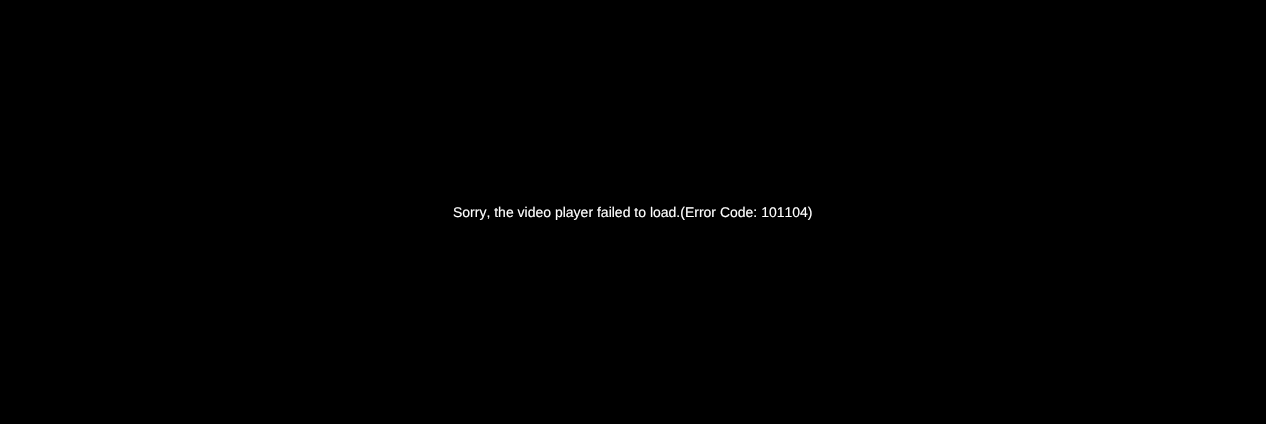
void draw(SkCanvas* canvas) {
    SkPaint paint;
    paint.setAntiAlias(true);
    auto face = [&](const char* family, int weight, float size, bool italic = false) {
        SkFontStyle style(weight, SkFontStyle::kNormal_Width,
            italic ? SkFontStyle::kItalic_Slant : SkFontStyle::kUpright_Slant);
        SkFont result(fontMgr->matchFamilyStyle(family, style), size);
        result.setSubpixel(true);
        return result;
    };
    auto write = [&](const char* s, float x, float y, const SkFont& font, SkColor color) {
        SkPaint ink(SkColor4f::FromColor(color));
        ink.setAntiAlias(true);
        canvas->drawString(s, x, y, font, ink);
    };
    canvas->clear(SK_ColorBLACK);
    auto kFont1 = face("Liberation Sans", 400, 14);
    write("Sorry, the video player failed to load.(Error Code: 101104)", 453, 217, kFont1, SK_ColorWHITE);
}
